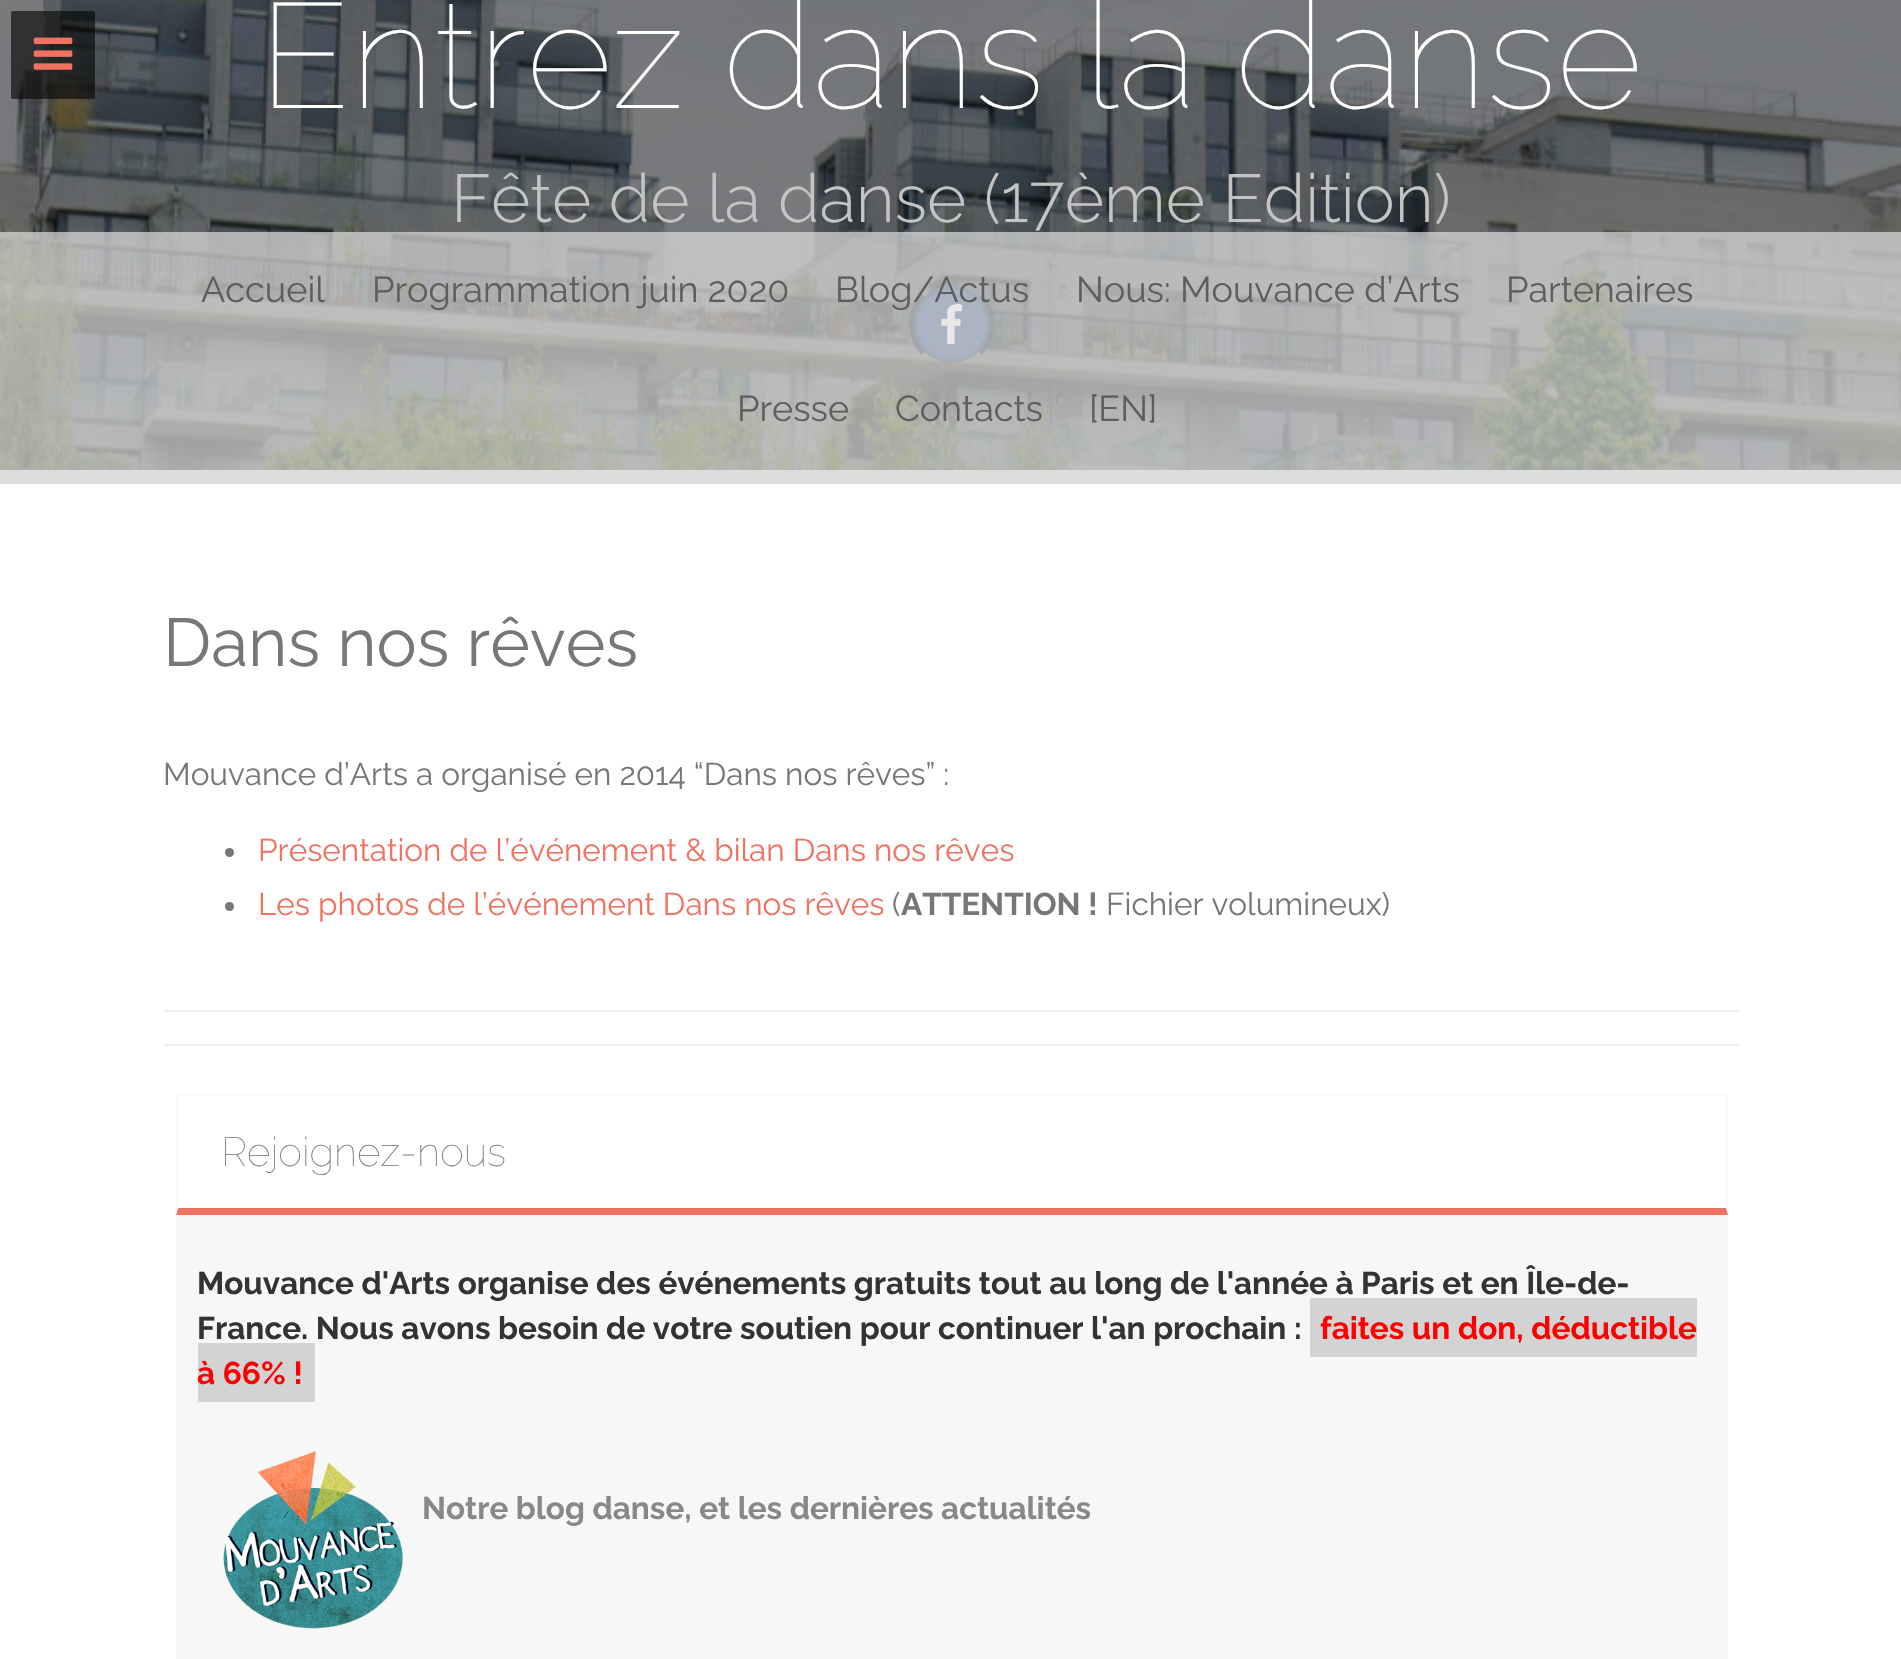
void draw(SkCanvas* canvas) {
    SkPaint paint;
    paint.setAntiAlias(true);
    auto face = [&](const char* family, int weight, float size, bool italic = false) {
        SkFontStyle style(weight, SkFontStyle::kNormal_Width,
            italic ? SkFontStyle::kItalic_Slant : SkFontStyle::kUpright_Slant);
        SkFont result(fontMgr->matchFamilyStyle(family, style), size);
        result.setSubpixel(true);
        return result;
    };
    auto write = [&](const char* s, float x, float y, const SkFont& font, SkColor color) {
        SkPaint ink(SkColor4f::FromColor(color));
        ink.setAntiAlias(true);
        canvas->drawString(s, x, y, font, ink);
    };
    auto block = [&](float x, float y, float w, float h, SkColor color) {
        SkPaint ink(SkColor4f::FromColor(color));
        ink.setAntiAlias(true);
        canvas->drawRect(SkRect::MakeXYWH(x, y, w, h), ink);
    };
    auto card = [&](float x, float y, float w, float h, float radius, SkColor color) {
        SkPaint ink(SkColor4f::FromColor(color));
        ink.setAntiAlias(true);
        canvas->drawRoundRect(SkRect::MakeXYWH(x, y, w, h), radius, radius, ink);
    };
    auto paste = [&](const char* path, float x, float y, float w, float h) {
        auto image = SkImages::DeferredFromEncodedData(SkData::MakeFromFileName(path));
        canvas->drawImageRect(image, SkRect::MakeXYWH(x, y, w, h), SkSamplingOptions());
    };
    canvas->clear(SK_ColorWHITE);
    paste("pic2.png", 0, 0, 1901, 470);
    card(11, 11, 84, 88, 2, SkColorSetARGB(153, 0, 0, 0));
    paste("pic1.png", 33, 37, 40, 33);
    auto kFont1 = face("Raleway", 100, 148.5f);
    write("Entrez dans la danse", 259, 108, kFont1, SK_ColorWHITE);
    auto kFont2 = face("Raleway", 300, 67.5f);
    write("Fête de la danse (17ème Edition)", 451, 222, kFont2, SkColorSetRGB(196, 196, 196));
    paste("pic3.png", 909, 285, 86, 78);
    block(0, 232, 1901, 238, SkColorSetARGB(179, 221, 221, 221));
    block(0, 470, 1901, 14, SkColorSetRGB(221, 221, 221));
    auto kFont3 = face("Raleway", 400, 36);
    write("Accueil", 201, 302, kFont3, SkColorSetRGB(94, 94, 94));
    write("Programmation juin 2020", 372, 302, kFont3, SkColorSetRGB(94, 94, 94));
    write("Blog/Actus", 835, 302, kFont3, SkColorSetRGB(94, 94, 94));
    write("Nous: Mouvance d’Arts", 1076, 302, kFont3, SkColorSetRGB(94, 94, 94));
    write("Partenaires", 1506, 302, kFont3, SkColorSetRGB(94, 94, 94));
    write("Presse", 737, 421, kFont3, SkColorSetRGB(94, 94, 94));
    write("Contacts", 895, 421, kFont3, SkColorSetRGB(94, 94, 94));
    write("[EN]", 1089, 421, kFont3, SkColorSetRGB(94, 94, 94));
    auto kFont4 = face("Raleway", 400, 67.5f);
    write("Dans nos rêves", 163, 666, kFont4, SkColorSetRGB(119, 119, 119));
    auto kFont5 = face("Raleway", 400, 31.5f);
    write("Mouvance d’Arts a organisé en 2014 “Dans nos rêves” :", 163, 785, kFont5, SkColorSetRGB(119, 119, 119));
    paint.setColor(SkColorSetRGB(119, 119, 119));
    canvas->drawCircle(229.5f, 852.5f, 4.5f, paint);
    write("Présentation de l’événement & bilan Dans nos rêves", 258, 861, kFont5, SkColorSetRGB(240, 114, 97));
    canvas->drawCircle(229.5f, 906.5f, 4.5f, paint);
    write("Les photos de l’événement Dans nos rêves", 258, 915, kFont5, SkColorSetRGB(240, 114, 97));
    write("(", 892, 915, kFont5, SkColorSetRGB(119, 119, 119));
    auto kFont6 = face("Raleway", 700, 31.5f);
    write("ATTENTION !", 901, 915, kFont6, SkColorSetRGB(119, 119, 119));
    write("Fichier volumineux)", 1106, 915, kFont5, SkColorSetRGB(119, 119, 119));
    block(164, 1010, 1575, 2, SkColorSetRGB(238, 238, 238));
    block(164, 1044, 1575, 2, SkColorSetRGB(238, 238, 238));
    block(176, 1094, 1552, 565, SkColorSetRGB(247, 247, 247));
    block(178, 1096, 1548, 112, SK_ColorWHITE);
    paint.setColor(SkColorSetRGB(240, 114, 97));
    canvas->drawPath(SkPathBuilder().moveTo(1728, 1215).lineTo(176, 1215).lineTo(178, 1208).lineTo(1726, 1208).close().detach(), paint);
    paint.setColor(SkColorSetRGB(247, 247, 247));
    canvas->drawPath(SkPathBuilder().moveTo(176, 1215).lineTo(176, 1094).lineTo(178, 1096).lineTo(178, 1208).close().detach(), paint);
    auto kFont7 = face("Raleway", 100, 40.5f);
    write("Rejoignez-nous", 221, 1166, kFont7, SkColorSetRGB(119, 119, 119));
    write("Mouvance d'Arts organise des événements gratuits tout au long de l'année à Paris et en Île-de-", 197, 1294, kFont6, SkColorSetRGB(51, 51, 51));
    write("France. Nous avons besoin de votre soutien pour continuer l'an prochain :", 197, 1339, kFont6, SkColorSetRGB(51, 51, 51));
    block(1310, 1298, 387, 59, SkColorSetRGB(211, 211, 211));
    write("faites un don, déductible", 1320, 1339, kFont6, SkColorSetRGB(255, 0, 0));
    block(198, 1343, 117, 59, SkColorSetRGB(211, 211, 211));
    write("à 66% !", 197, 1384, kFont6, SkColorSetRGB(255, 0, 0));
    paste("pic4.png", 223, 1451, 180, 178);
    write("Notre blog danse, et les dernières actualités", 422, 1519, kFont6, SkColorSetRGB(136, 136, 136));
}
